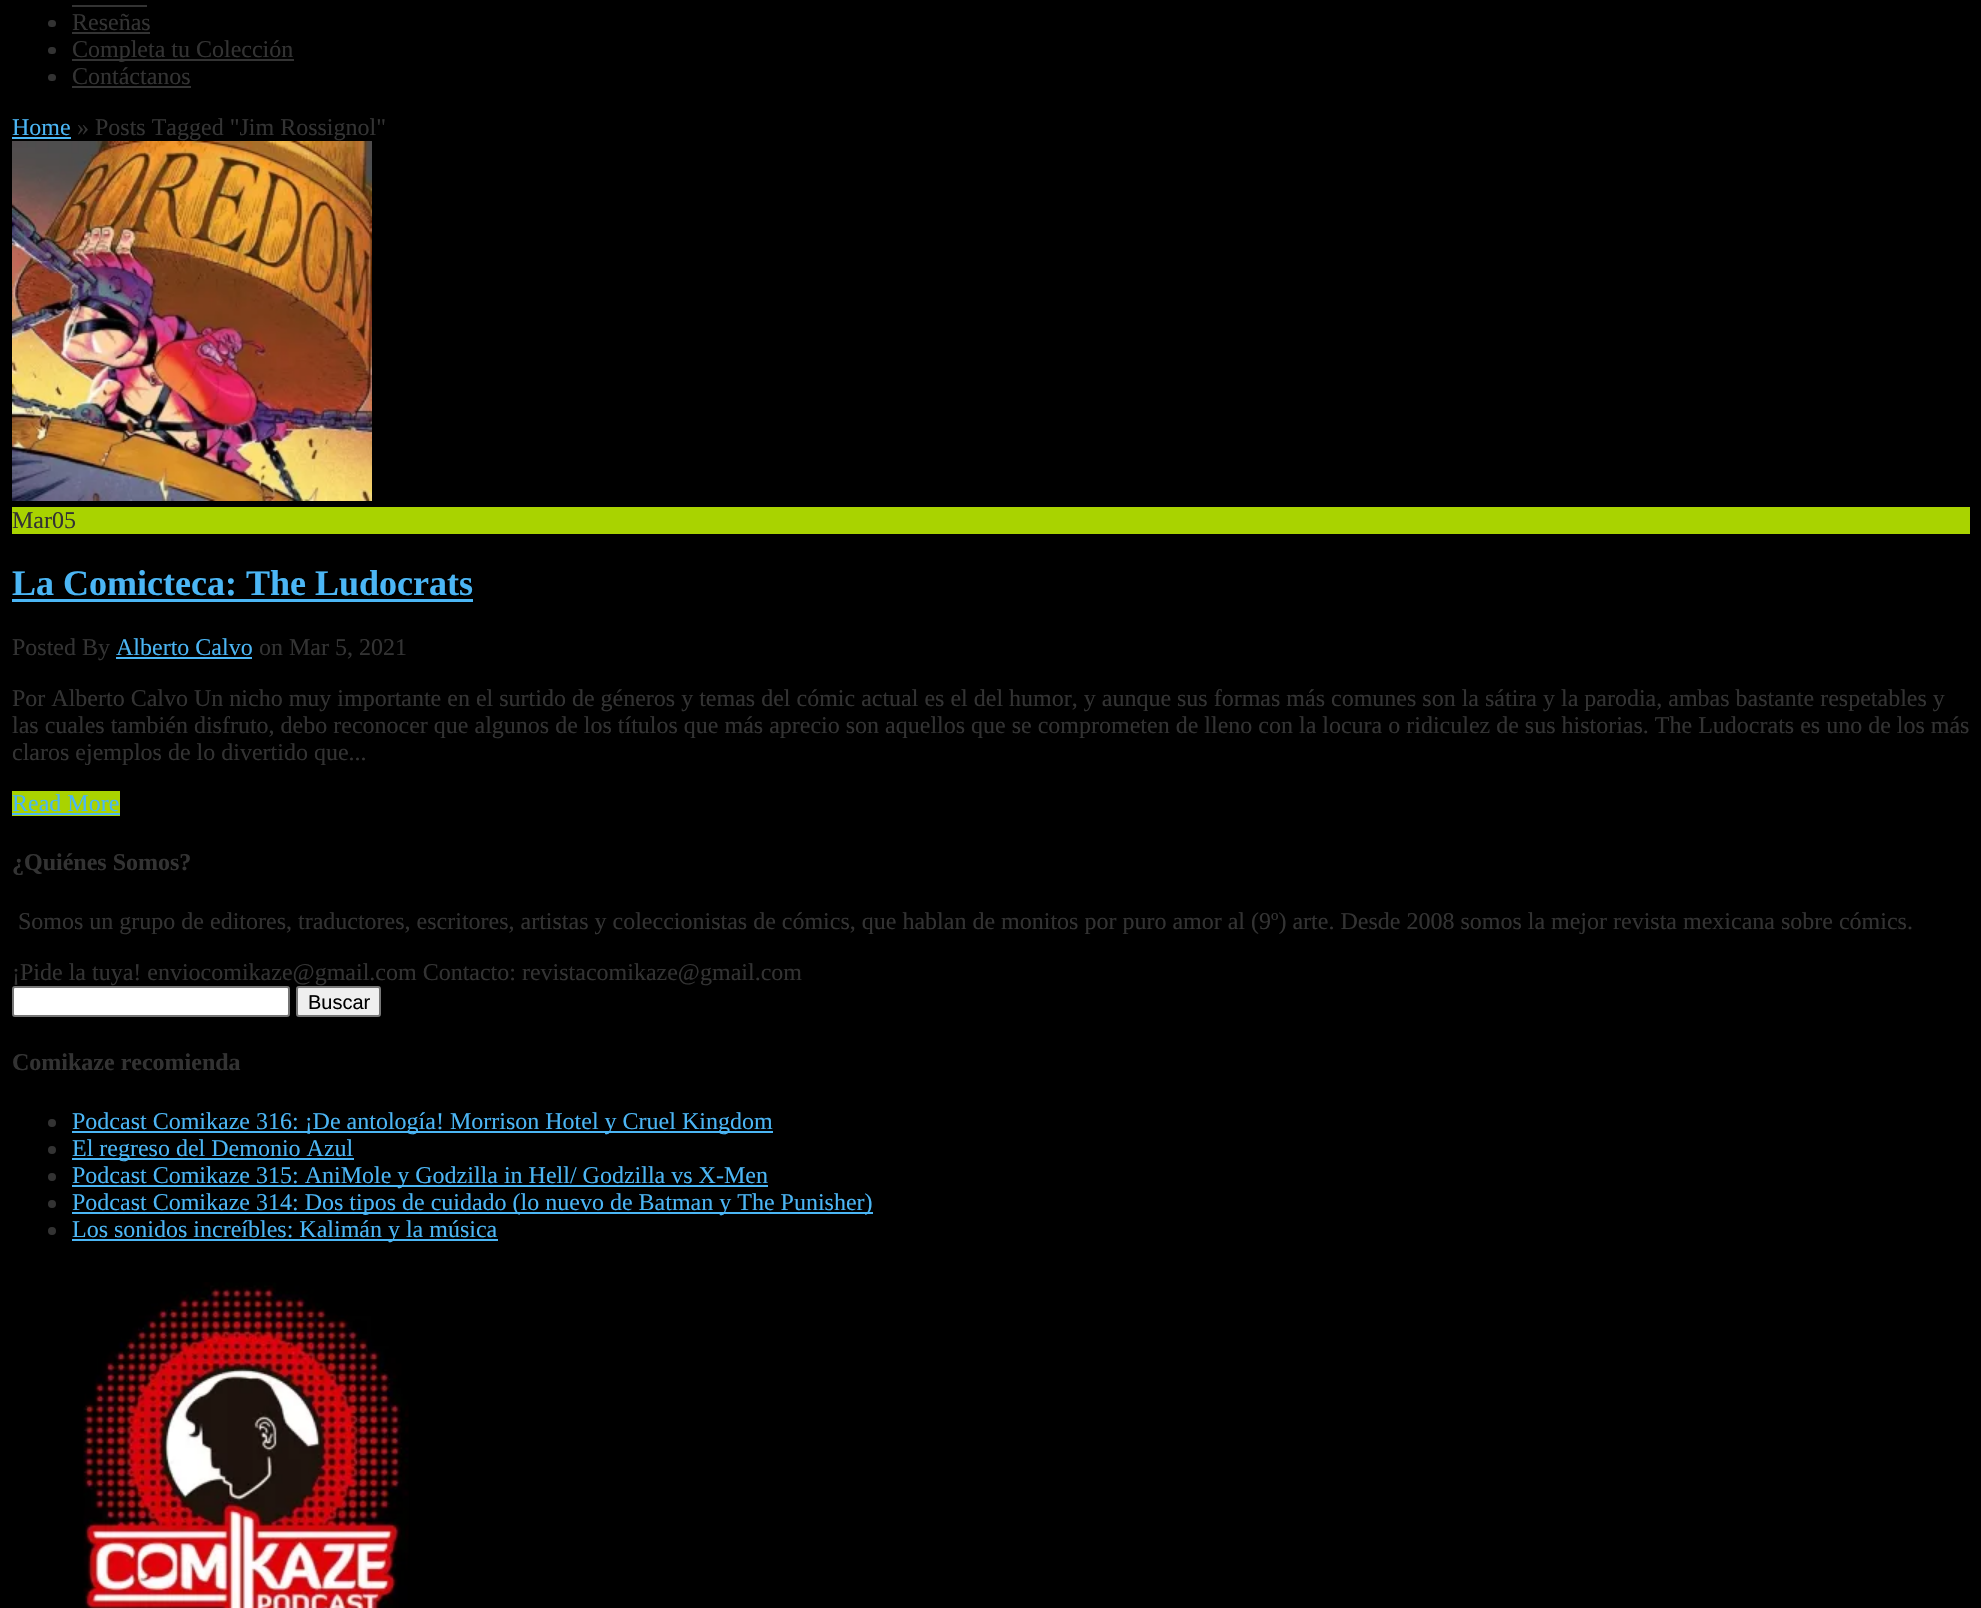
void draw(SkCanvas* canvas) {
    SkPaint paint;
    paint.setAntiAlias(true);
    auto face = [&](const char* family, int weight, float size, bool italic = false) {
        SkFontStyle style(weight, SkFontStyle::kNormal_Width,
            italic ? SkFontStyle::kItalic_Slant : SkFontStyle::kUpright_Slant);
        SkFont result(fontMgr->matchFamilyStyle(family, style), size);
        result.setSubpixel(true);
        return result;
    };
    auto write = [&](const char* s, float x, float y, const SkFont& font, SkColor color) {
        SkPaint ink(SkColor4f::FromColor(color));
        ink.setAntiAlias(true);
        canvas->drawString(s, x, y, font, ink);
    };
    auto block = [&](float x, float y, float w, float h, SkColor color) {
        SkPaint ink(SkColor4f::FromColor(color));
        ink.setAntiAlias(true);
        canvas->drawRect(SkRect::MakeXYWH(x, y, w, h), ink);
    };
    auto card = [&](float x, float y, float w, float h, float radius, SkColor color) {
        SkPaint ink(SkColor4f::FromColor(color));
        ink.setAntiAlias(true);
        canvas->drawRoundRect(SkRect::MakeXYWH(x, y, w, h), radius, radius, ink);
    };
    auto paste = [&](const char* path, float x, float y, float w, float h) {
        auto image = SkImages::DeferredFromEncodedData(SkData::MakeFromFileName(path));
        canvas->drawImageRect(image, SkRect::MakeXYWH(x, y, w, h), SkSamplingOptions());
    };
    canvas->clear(SK_ColorBLACK);
    block(72, 5, 75, 2, SkColorSetRGB(51, 51, 51));
    card(48, 20, 8, 7, 3.5f, SkColorSetRGB(51, 51, 51));
    auto kFont1 = face("Liberation Serif", 400, 24);
    write("Reseñas", 72, 30, kFont1, SkColorSetRGB(51, 51, 51));
    block(72, 32, 78, 2, SkColorSetRGB(51, 51, 51));
    card(48, 47, 8, 7, 3.5f, SkColorSetRGB(51, 51, 51));
    block(72, 59, 222, 2, SkColorSetRGB(51, 51, 51));
    write("Completa tu Colección", 72, 57, kFont1, SkColorSetRGB(51, 51, 51));
    card(48, 74, 8, 7, 3.5f, SkColorSetRGB(51, 51, 51));
    write("Contáctanos", 72, 84, kFont1, SkColorSetRGB(51, 51, 51));
    block(72, 86, 119, 2, SkColorSetRGB(51, 51, 51));
    write("Home", 12, 135, kFont1, SkColorSetRGB(75, 182, 245));
    block(12, 137, 59, 2, SkColorSetRGB(75, 182, 245));
    write("» Posts Tagged \"Jim Rossignol\"", 77, 135, kFont1, SkColorSetRGB(51, 51, 51));
    paste("pic1.png", 12, 141, 360, 360);
    block(12, 507, 1958, 27, SkColorSetRGB(169, 211, 0));
    write("Mar05", 12, 528, kFont1, SkColorSetRGB(51, 51, 51));
    auto kFont2 = face("Liberation Serif", 700, 36);
    write("La Comicteca: The Ludocrats", 12, 595, kFont2, SkColorSetRGB(75, 182, 245));
    block(12, 599, 461, 3, SkColorSetRGB(75, 182, 245));
    write("Posted By", 12, 655, kFont1, SkColorSetRGB(51, 51, 51));
    write("Alberto Calvo", 116, 655, kFont1, SkColorSetRGB(75, 182, 245));
    block(116, 657, 136, 2, SkColorSetRGB(75, 182, 245));
    write("on Mar 5, 2021", 259, 655, kFont1, SkColorSetRGB(51, 51, 51));
    write("Por Alberto Calvo Un nicho muy importante en el surtido de géneros y temas del cómic actual es el del humor, y aunque sus formas más comunes son la sátira y la parodia, ambas bastante respetables y", 12, 706, kFont1, SkColorSetRGB(51, 51, 51));
    write("las cuales también disfruto, debo reconocer que algunos de los títulos que más aprecio son aquellos que se comprometen de lleno con la locura o ridiculez de sus historias. The Ludocrats es uno de los más", 12, 733, kFont1, SkColorSetRGB(51, 51, 51));
    write("claros ejemplos de lo divertido que...", 12, 760, kFont1, SkColorSetRGB(51, 51, 51));
    block(12, 791, 108, 25, SkColorSetRGB(169, 211, 0));
    write("Read More", 12, 811, kFont1, SkColorSetRGB(75, 182, 245));
    block(12, 813, 108, 2, SkColorSetRGB(75, 182, 245));
    auto kFont3 = face("Liberation Serif", 700, 24);
    write("¿Quiénes Somos?", 12, 870, kFont3, SkColorSetRGB(51, 51, 51));
    write("Somos un grupo de editores, traductores, escritores, artistas y coleccionistas de cómics, que hablan de monitos por puro amor al (9º) arte. Desde 2008 somos la mejor revista mexicana sobre cómics.", 18, 929, kFont1, SkColorSetRGB(51, 51, 51));
    write("¡Pide la tuya! enviocomikaze@gmail.com Contacto: revistacomikaze@gmail.com", 12, 980, kFont1, SkColorSetRGB(51, 51, 51));
    paint.setColor(SK_ColorWHITE);
    canvas->drawRoundRect(SkRect::MakeXYWH(13, 987, 276, 29), 2, 2, paint);
    paint.setStyle(SkPaint::kStroke_Style);
    paint.setStrokeWidth(2);
    paint.setColor(SkColorSetRGB(118, 118, 118));
    canvas->drawRoundRect(SkRect::MakeXYWH(13, 987, 276, 29), 2, 2, paint);
    paint.setStyle(SkPaint::kFill_Style);
    paint.setColor(SkColorSetRGB(239, 239, 239));
    canvas->drawRoundRect(SkRect::MakeXYWH(297, 987, 83, 29), 2, 2, paint);
    paint.setStyle(SkPaint::kStroke_Style);
    paint.setColor(SkColorSetRGB(118, 118, 118));
    canvas->drawRoundRect(SkRect::MakeXYWH(297, 987, 83, 29), 2, 2, paint);
    auto kFont4 = face("Liberation Sans", 400, 20);
    write("Buscar", 308, 1009, kFont4, SK_ColorBLACK);
    write("Comikaze recomienda", 12, 1070, kFont3, SkColorSetRGB(51, 51, 51));
    paint.setStyle(SkPaint::kFill_Style);
    paint.setColor(SkColorSetRGB(51, 51, 51));
    canvas->drawCircle(52, 1123, 4, paint);
    block(72, 1131, 701, 2, SkColorSetRGB(75, 182, 245));
    write("Podcast Comikaze 316: ¡De antología! Morrison Hotel y Cruel Kingdom", 72, 1129, kFont1, SkColorSetRGB(75, 182, 245));
    canvas->drawCircle(52, 1150, 4, paint);
    block(72, 1158, 282, 2, SkColorSetRGB(75, 182, 245));
    write("El regreso del Demonio Azul", 72, 1156, kFont1, SkColorSetRGB(75, 182, 245));
    canvas->drawCircle(52, 1177, 4, paint);
    block(72, 1185, 696, 2, SkColorSetRGB(75, 182, 245));
    write("Podcast Comikaze 315: AniMole y Godzilla in Hell/ Godzilla vs X-Men", 72, 1183, kFont1, SkColorSetRGB(75, 182, 245));
    canvas->drawCircle(52, 1204, 4, paint);
    block(72, 1212, 801, 2, SkColorSetRGB(75, 182, 245));
    write("Podcast Comikaze 314: Dos tipos de cuidado (lo nuevo de Batman y The Punisher)", 72, 1210, kFont1, SkColorSetRGB(75, 182, 245));
    canvas->drawCircle(52, 1231, 4, paint);
    block(72, 1239, 426, 2, SkColorSetRGB(75, 182, 245));
    write("Los sonidos increíbles: Kalimán y la música", 72, 1237, kFont1, SkColorSetRGB(75, 182, 245));
    paste("pic2.png", 83, 1282, 326, 326);
}
